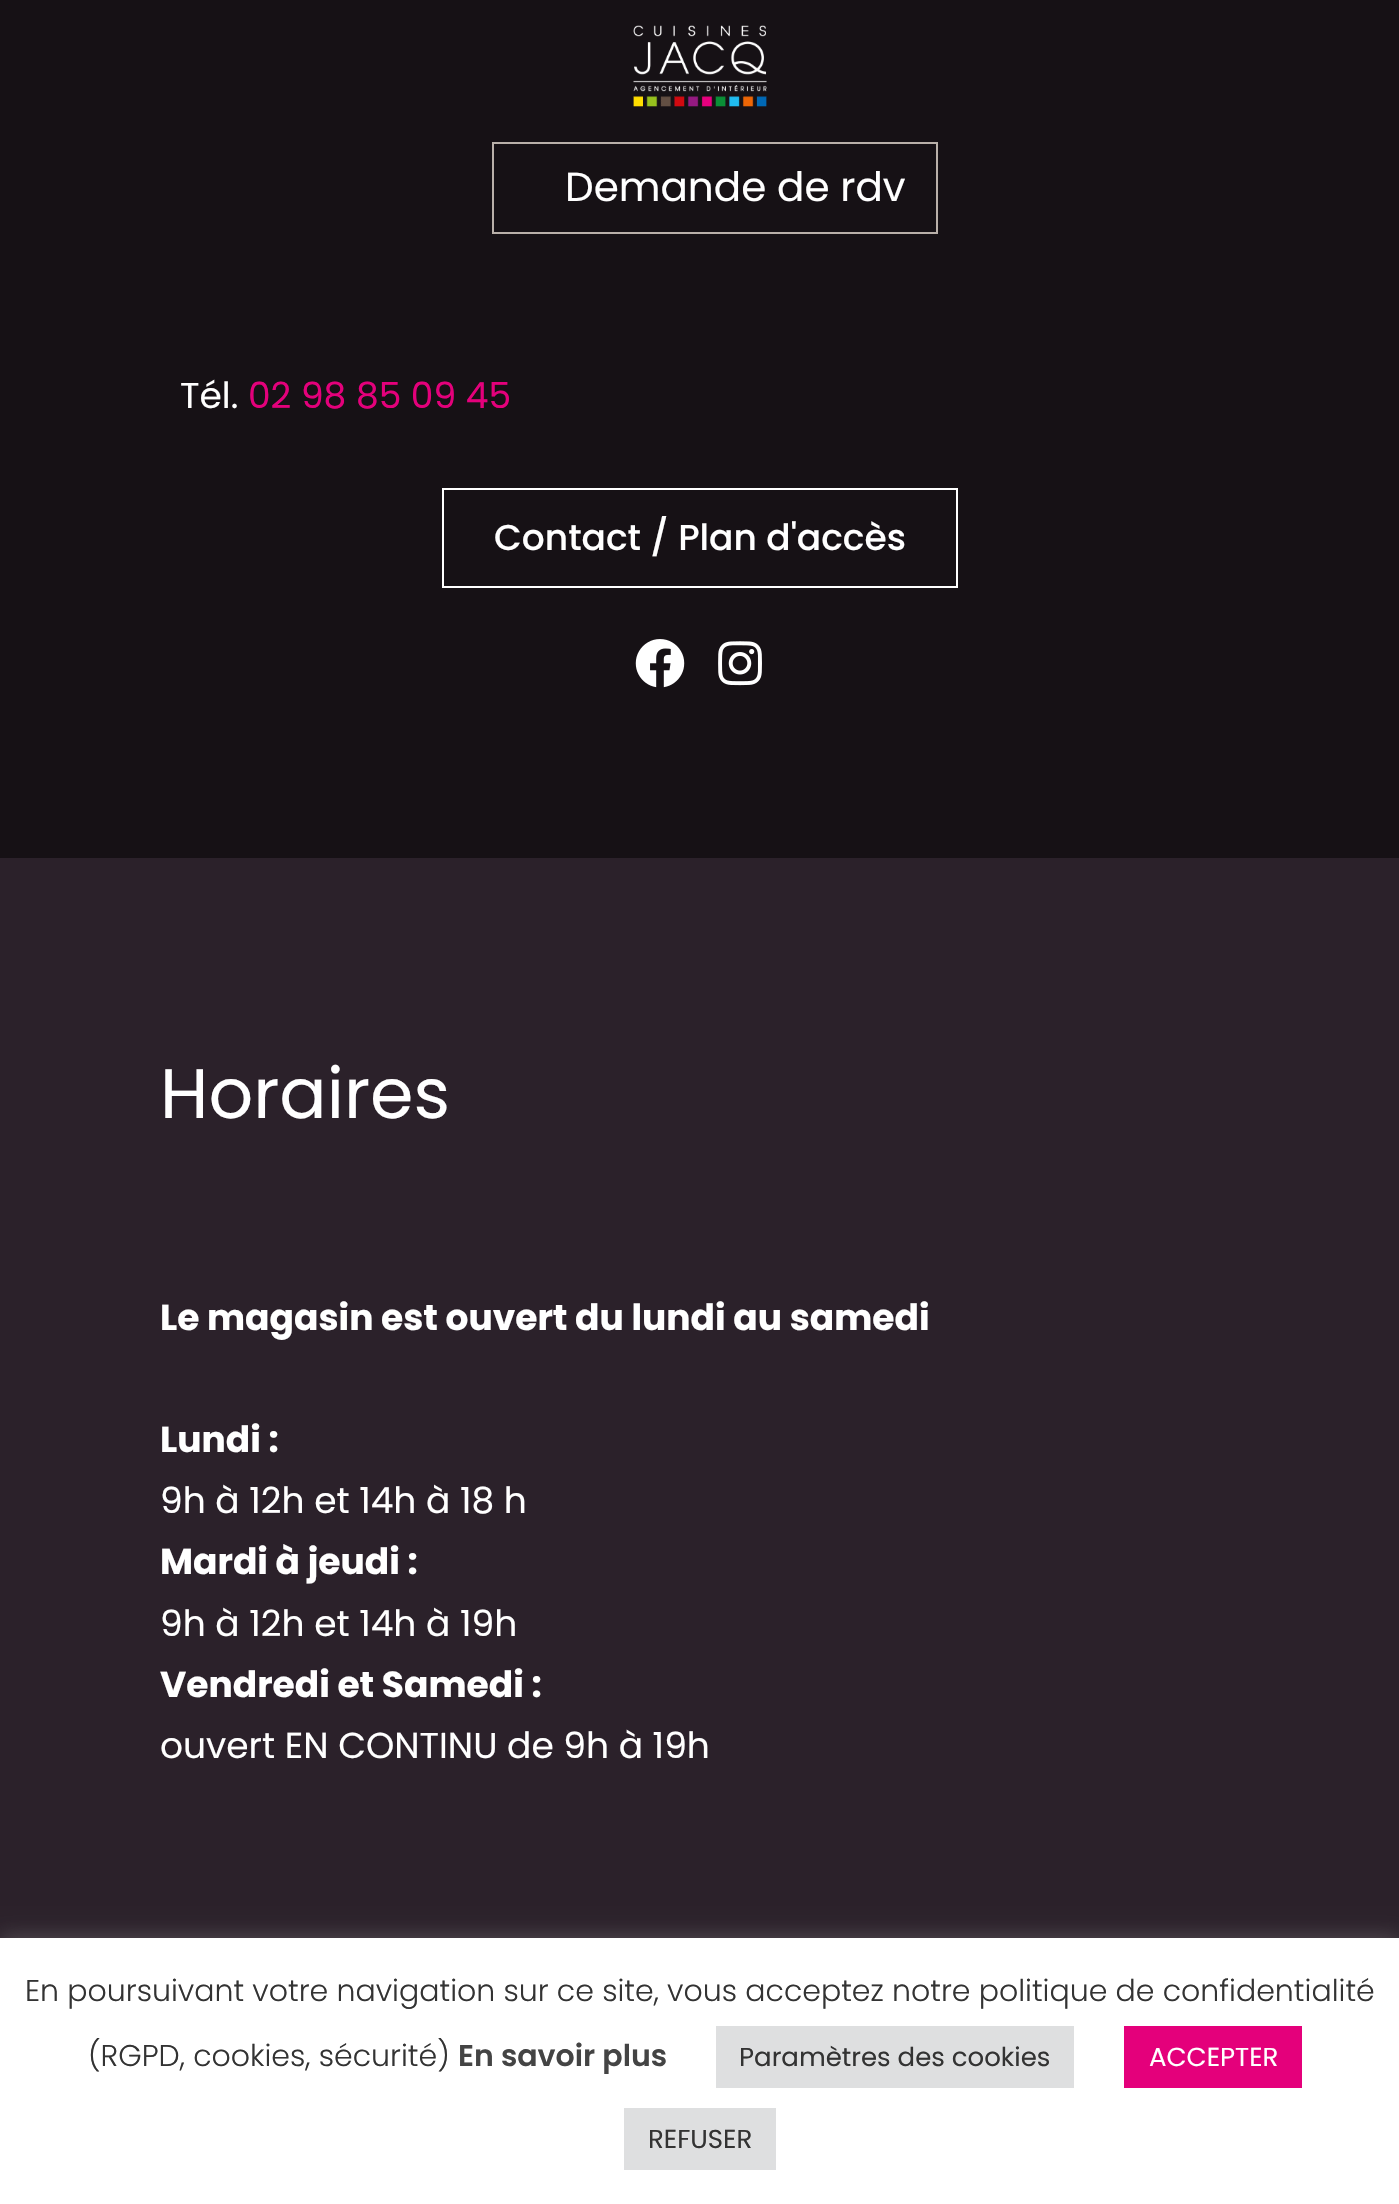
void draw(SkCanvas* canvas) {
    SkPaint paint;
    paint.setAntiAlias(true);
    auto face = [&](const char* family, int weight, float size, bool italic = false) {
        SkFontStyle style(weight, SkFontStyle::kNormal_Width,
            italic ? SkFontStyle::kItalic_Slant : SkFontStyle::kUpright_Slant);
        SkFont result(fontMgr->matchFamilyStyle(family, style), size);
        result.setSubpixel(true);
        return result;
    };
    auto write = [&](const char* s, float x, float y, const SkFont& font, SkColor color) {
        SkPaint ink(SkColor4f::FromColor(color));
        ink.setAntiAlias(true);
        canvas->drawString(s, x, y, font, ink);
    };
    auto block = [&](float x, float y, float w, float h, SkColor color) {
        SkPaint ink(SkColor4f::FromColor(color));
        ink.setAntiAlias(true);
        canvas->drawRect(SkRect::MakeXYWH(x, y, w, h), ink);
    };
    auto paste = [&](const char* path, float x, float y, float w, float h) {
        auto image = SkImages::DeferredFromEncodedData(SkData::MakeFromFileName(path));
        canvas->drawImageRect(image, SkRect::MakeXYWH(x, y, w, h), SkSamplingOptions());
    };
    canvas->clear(SkColorSetRGB(22, 17, 21));
    paste("pic1.png", 633, 25, 134, 82);
    paint.setStyle(SkPaint::kStroke_Style);
    paint.setStrokeWidth(2);
    paint.setColor(SkColorSetRGB(185, 176, 169));
    canvas->drawRect(SkRect::MakeXYWH(493, 143, 444, 90), paint);
    auto kFont1 = face("Poppins", 400, 40.5f);
    write("Demande de rdv", 565, 201, kFont1, SK_ColorWHITE);
    auto kFont2 = face("Poppins", 400, 36);
    write("Tél.", 180, 408, kFont2, SK_ColorWHITE);
    write("02 98 85 09 45", 248, 408, kFont2, SkColorSetRGB(228, 0, 123));
    paint.setColor(SK_ColorWHITE);
    canvas->drawRect(SkRect::MakeXYWH(443, 489, 514, 98), paint);
    auto kFont3 = face("Poppins", 500, 36);
    write("Contact / Plan d'accès", 494, 550, kFont3, SK_ColorWHITE);
    paste("pic2.png", 635, 639, 50, 49);
    paste("pic3.png", 718, 641, 44, 45);
    block(0, 858, 1399, 1080, SkColorSetRGB(43, 33, 42));
    auto kFont4 = face("Poppins", 400, 70);
    write("Horaires", 160, 1118, kFont4, SK_ColorWHITE);
    auto kFont5 = face("Poppins", 700, 36);
    write("Le magasin est ouvert du lundi au samedi", 160, 1330, kFont5, SK_ColorWHITE);
    write("Lundi :", 160, 1452, kFont5, SK_ColorWHITE);
    write("9h à 12h et 14h à 18 h", 160, 1513, kFont2, SK_ColorWHITE);
    write("Mardi à jeudi :", 160, 1574, kFont5, SK_ColorWHITE);
    write("9h à 12h et 14h à 19h", 160, 1636, kFont2, SK_ColorWHITE);
    write("Vendredi et Samedi :", 160, 1697, kFont5, SK_ColorWHITE);
    write("ouvert EN CONTINU de 9h à 19h", 160, 1758, kFont2, SK_ColorWHITE);
    paint.setStyle(SkPaint::kFill_Style);
    paint.setColor(SkColorSetARGB(77, 172, 171, 171));
    paint.setMaskFilter(SkMaskFilter::MakeBlur(kNormal_SkBlurStyle, 10));
    canvas->drawRect(SkRect::MakeXYWH(0, 1936, 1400, 266), paint);
    paint.setMaskFilter(nullptr);
    block(0, 1938, 1399, 266, SK_ColorWHITE);
    auto kFont6 = face("Poppins", 300, 30);
    write("En poursuivant votre navigation sur ce site, vous acceptez notre politique de confidentialité", 25, 2001, kFont6, SkColorSetRGB(51, 51, 51));
    write("(RGPD, cookies, sécurité)", 88, 2066, kFont6, SkColorSetRGB(51, 51, 51));
    auto kFont7 = face("Poppins", 600, 30);
    write("En savoir plus", 458, 2066, kFont7, SkColorSetRGB(68, 68, 68));
    block(716, 2026, 358, 62, SkColorSetRGB(222, 223, 224));
    auto kFont8 = face("Poppins", 400, 26);
    write("Paramètres des cookies", 739, 2066, kFont8, SkColorSetRGB(51, 51, 51));
    block(1124, 2026, 178, 62, SkColorSetRGB(228, 0, 123));
    write("ACCEPTER", 1149, 2066, kFont8, SK_ColorWHITE);
    block(624, 2108, 152, 62, SkColorSetRGB(222, 223, 224));
    write("REFUSER", 648, 2148, kFont8, SkColorSetRGB(51, 51, 51));
}
